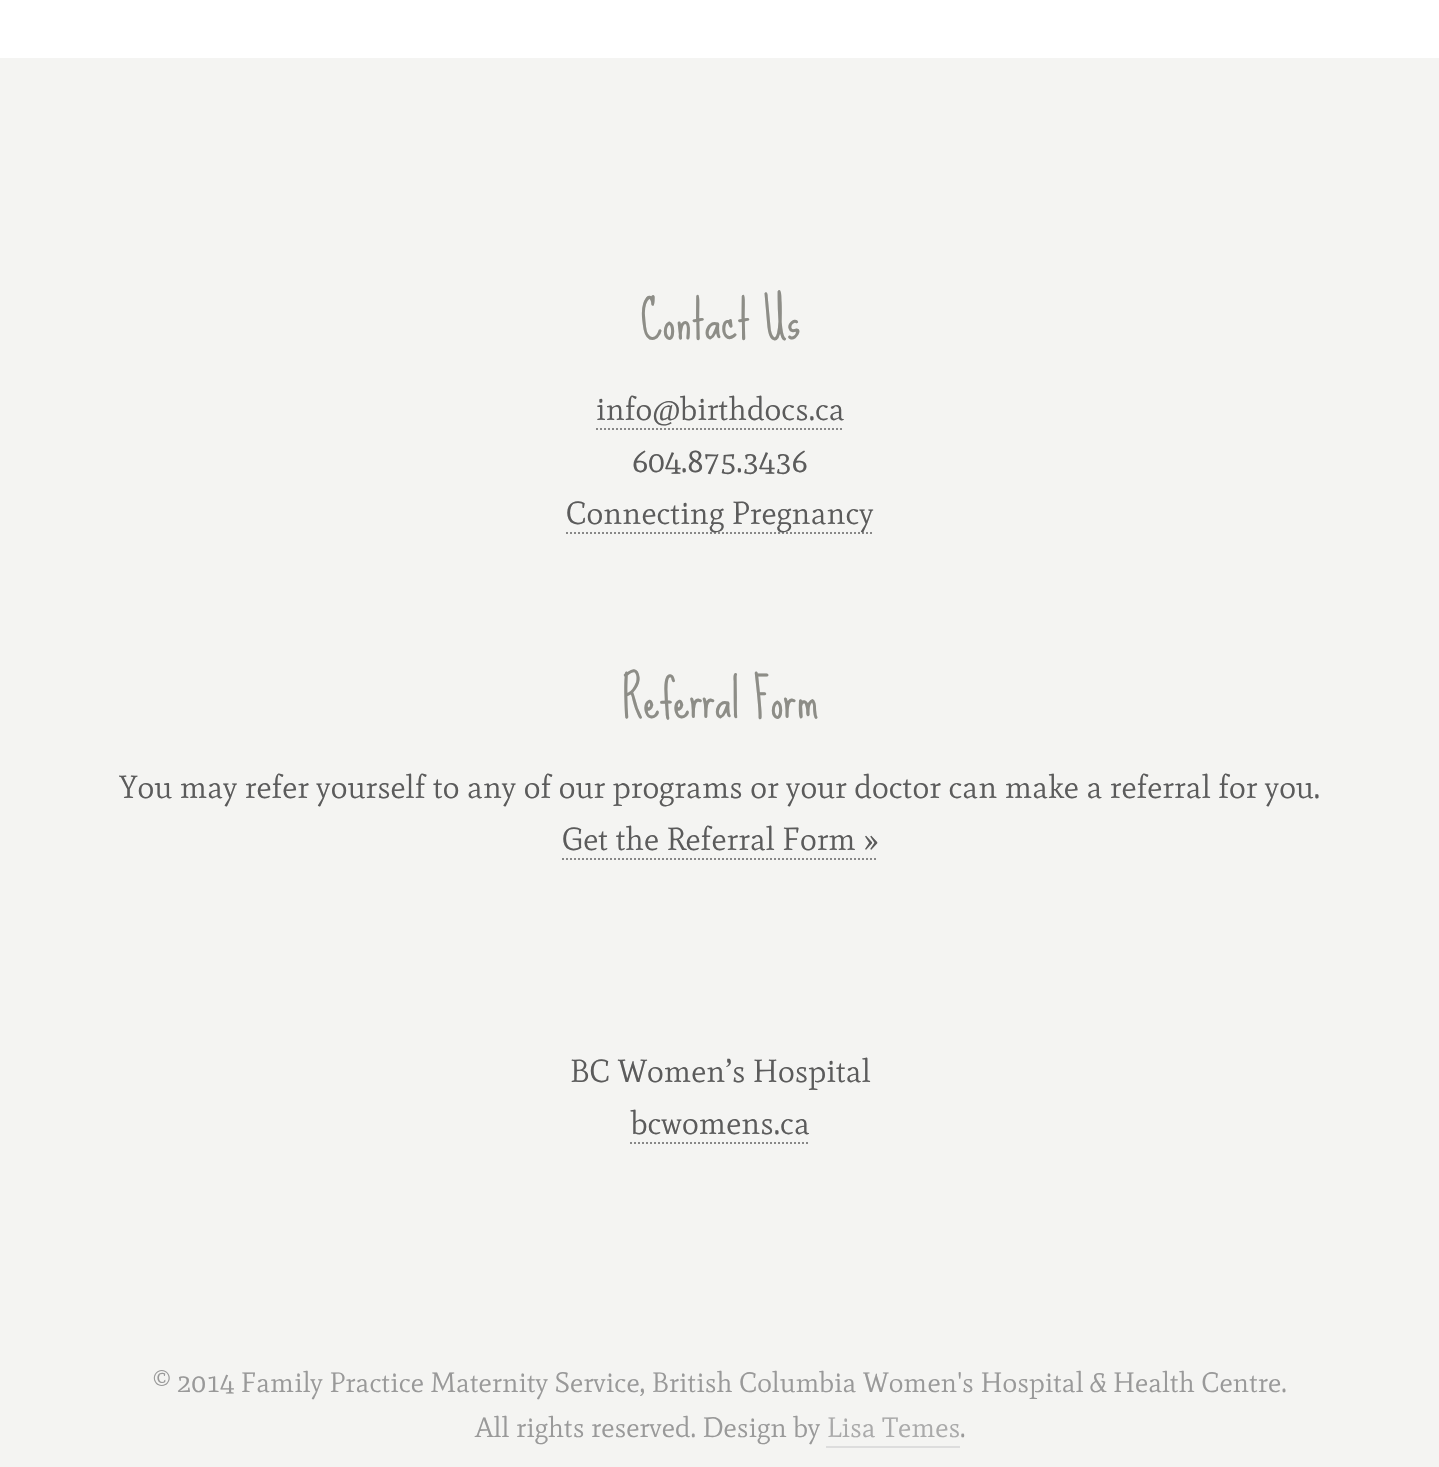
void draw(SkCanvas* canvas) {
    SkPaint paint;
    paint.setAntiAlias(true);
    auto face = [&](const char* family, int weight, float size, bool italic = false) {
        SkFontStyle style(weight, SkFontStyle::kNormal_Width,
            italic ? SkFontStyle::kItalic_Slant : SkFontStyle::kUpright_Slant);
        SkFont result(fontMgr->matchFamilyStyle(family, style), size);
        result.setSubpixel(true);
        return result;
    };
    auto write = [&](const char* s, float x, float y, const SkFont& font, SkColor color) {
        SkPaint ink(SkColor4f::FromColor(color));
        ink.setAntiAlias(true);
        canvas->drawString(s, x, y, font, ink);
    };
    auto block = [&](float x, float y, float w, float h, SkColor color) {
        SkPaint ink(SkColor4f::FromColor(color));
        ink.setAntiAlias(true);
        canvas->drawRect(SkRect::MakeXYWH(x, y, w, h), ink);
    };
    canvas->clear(SK_ColorWHITE);
    block(0, 58, 1439, 1409, SkColorSetRGB(244, 244, 242));
    auto kFont1 = face("Sue Ellen Francisco", 400, 52);
    write("Contact Us", 640, 339, kFont1, SkColorSetRGB(141, 141, 135));
    auto kFont2 = face("Mate", 400, 32);
    write("info@birthdocs.ca", 596, 420, kFont2, SkColorSetRGB(91, 91, 91));
    paint.setStyle(SkPaint::kStroke_Style);
    paint.setStrokeWidth(2);
    paint.setColor(SkColorSetRGB(136, 136, 136));
    paint.setPathEffect(SkDashPathEffect::Make({{2, 2}}, 0));
    canvas->drawPath(SkPathBuilder().moveTo(596, 429).lineTo(844, 429).detach(), paint);
    paint.setPathEffect(nullptr);
    write("604.875.3436", 632, 472, kFont2, SkColorSetRGB(91, 91, 91));
    paint.setPathEffect(SkDashPathEffect::Make({{2, 2}}, 0));
    canvas->drawPath(SkPathBuilder().moveTo(566, 533).lineTo(874, 533).detach(), paint);
    paint.setPathEffect(nullptr);
    write("Connecting Pregnancy", 566, 524, kFont2, SkColorSetRGB(91, 91, 91));
    write("Referral Form", 622, 718, kFont1, SkColorSetRGB(141, 141, 135));
    write("You may refer yourself to any of our programs or your doctor can make a referral for you.", 119, 798, kFont2, SkColorSetRGB(91, 91, 91));
    write("Get the Referral Form »", 562, 850, kFont2, SkColorSetRGB(91, 91, 91));
    paint.setPathEffect(SkDashPathEffect::Make({{2, 2}}, 0));
    canvas->drawPath(SkPathBuilder().moveTo(562, 859).lineTo(878, 859).detach(), paint);
    paint.setPathEffect(nullptr);
    write("BC Women’s Hospital", 570, 1082, kFont2, SkColorSetRGB(91, 91, 91));
    write("bcwomens.ca", 631, 1134, kFont2, SkColorSetRGB(91, 91, 91));
    paint.setPathEffect(SkDashPathEffect::Make({{2, 2}}, 0));
    canvas->drawPath(SkPathBuilder().moveTo(630, 1143).lineTo(810, 1143).detach(), paint);
    paint.setPathEffect(nullptr);
    auto kFont3 = face("Mate", 400, 28);
    write("© 2014 Family Practice Maternity Service, British Columbia Women's Hospital & Health Centre.", 153, 1392, kFont3, SkColorSetRGB(153, 153, 153));
    write("All rights reserved. Design by", 475, 1437, kFont3, SkColorSetRGB(153, 153, 153));
    write("Lisa Temes", 827, 1437, kFont3, SkColorSetRGB(170, 170, 170));
    block(826, 1446, 134, 2, SkColorSetRGB(221, 221, 221));
    write(".", 960, 1437, kFont3, SkColorSetRGB(153, 153, 153));
}
